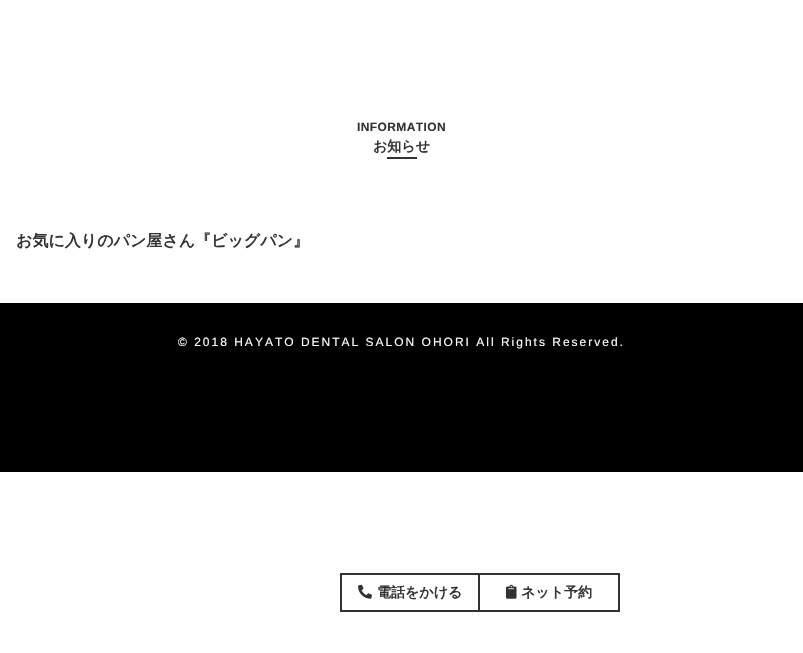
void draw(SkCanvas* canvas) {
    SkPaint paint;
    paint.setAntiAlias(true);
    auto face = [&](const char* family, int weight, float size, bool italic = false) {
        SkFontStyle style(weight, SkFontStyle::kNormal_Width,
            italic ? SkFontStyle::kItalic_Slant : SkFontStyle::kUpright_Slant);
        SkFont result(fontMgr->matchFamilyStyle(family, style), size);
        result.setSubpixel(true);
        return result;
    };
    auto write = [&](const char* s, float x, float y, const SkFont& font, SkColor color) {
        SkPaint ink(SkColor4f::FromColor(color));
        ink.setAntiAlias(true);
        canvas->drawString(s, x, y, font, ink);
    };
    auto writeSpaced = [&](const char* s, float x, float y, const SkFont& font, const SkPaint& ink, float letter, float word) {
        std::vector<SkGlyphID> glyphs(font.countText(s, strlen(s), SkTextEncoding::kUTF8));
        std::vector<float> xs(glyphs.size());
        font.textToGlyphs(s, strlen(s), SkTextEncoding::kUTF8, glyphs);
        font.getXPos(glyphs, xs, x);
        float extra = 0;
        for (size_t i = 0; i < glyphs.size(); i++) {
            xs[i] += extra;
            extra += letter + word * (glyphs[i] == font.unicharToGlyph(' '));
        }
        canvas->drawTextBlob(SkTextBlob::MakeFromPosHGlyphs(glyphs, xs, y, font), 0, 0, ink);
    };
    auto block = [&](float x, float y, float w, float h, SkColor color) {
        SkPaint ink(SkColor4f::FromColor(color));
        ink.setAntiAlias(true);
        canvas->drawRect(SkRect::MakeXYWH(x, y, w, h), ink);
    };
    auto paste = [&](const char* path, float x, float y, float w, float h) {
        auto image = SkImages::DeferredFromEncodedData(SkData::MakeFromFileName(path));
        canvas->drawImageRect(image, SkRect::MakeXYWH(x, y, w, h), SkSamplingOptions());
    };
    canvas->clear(SK_ColorWHITE);
    auto kFont1 = face("Liberation Sans", 700, 12);
    paint.setColor(SkColorSetRGB(50, 50, 50));
    writeSpaced("INFORMATION", 357, 131, kFont1, paint, 0.4f, 0);
    auto kFont2 = face("WenQuanYi Zen Hei", 700, 14);
    write("お知らせ", 373, 151, kFont2, SkColorSetRGB(50, 50, 50));
    block(387, 157, 30, 2, SkColorSetRGB(50, 50, 50));
    auto kFont3 = face("WenQuanYi Zen Hei", 700, 16);
    write("お気に入りのパン屋さん『ビッグパン』", 16, 246, kFont3, SkColorSetRGB(50, 50, 50));
    block(0, 303, 803, 169, SK_ColorBLACK);
    auto kFont4 = face("Liberation Sans", 400, 12);
    paint.setColor(SK_ColorWHITE);
    writeSpaced("© 2018 HAYATO DENTAL SALON OHORI All Rights Reserved.", 178, 346, kFont4, paint, 2, 0);
    paint.setStyle(SkPaint::kStroke_Style);
    paint.setStrokeWidth(2);
    paint.setColor(SkColorSetRGB(50, 50, 50));
    canvas->drawRect(SkRect::MakeXYWH(341, 574, 138, 37), paint);
    paste("pic1.png", 358, 584, 14, 15);
    write("電話をかける", 377, 597, kFont2, SkColorSetRGB(50, 50, 50));
    block(480, 573, 140, 2, SkColorSetRGB(50, 50, 50));
    block(618, 573, 2, 39, SkColorSetRGB(50, 50, 50));
    block(480, 610, 140, 2, SkColorSetRGB(50, 50, 50));
    paste("pic2.png", 506, 584, 11, 15);
    write("ネット予約", 521, 597, kFont2, SkColorSetRGB(50, 50, 50));
}
